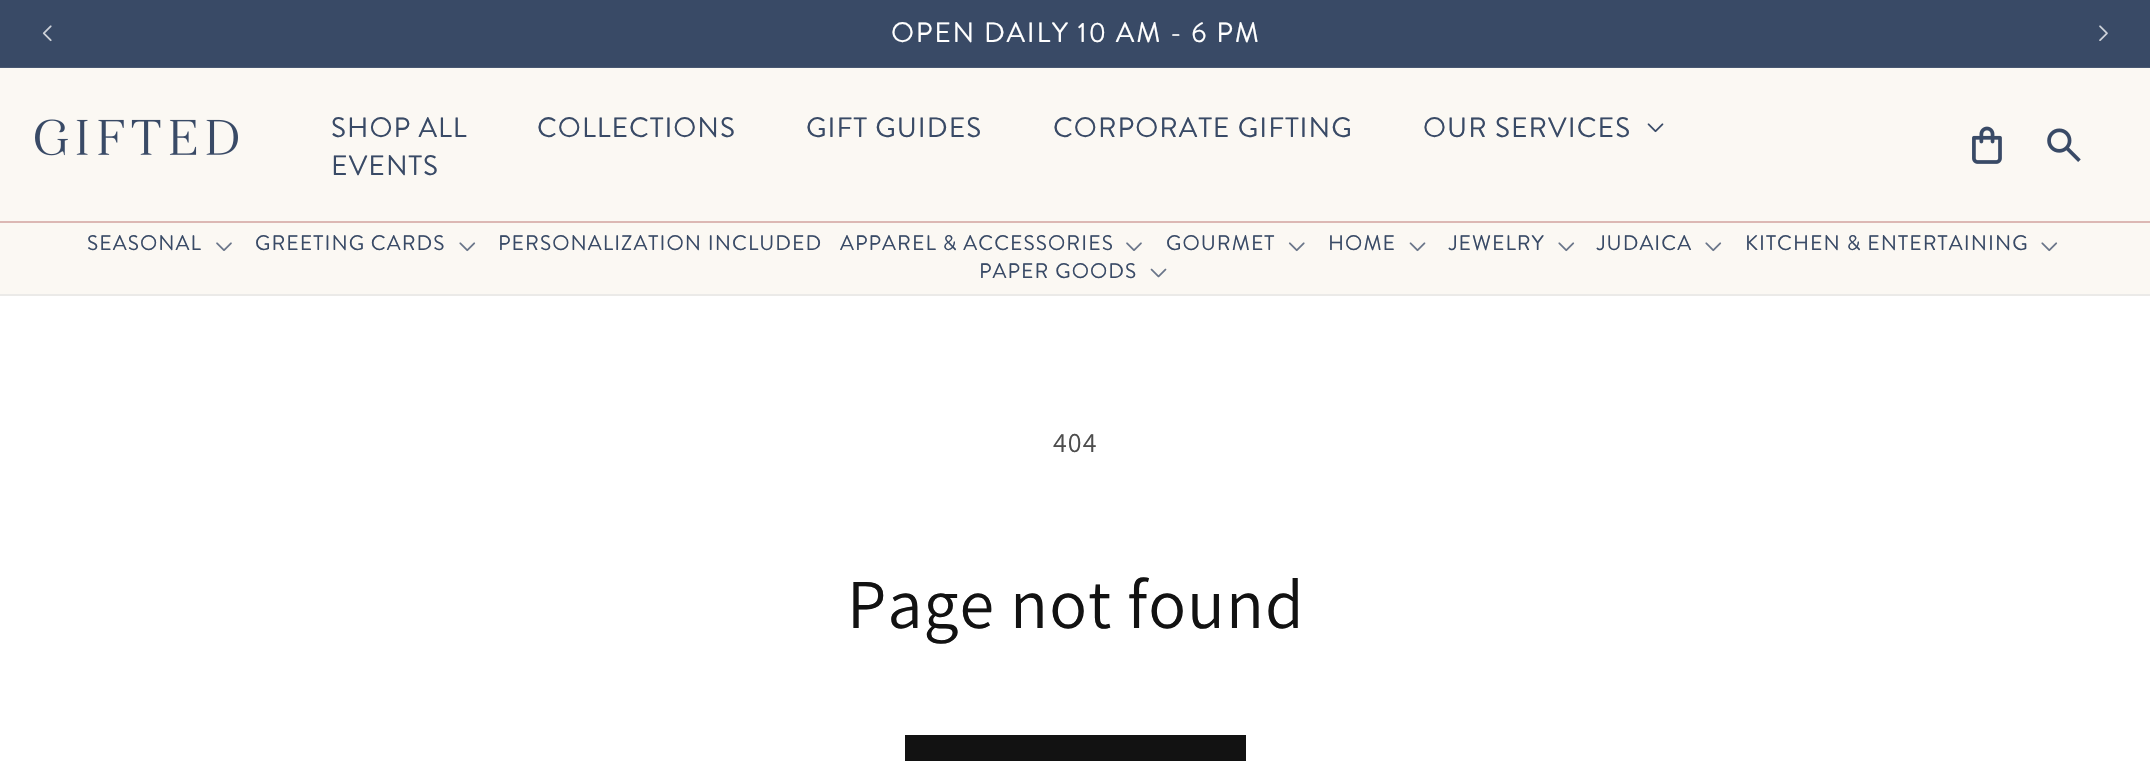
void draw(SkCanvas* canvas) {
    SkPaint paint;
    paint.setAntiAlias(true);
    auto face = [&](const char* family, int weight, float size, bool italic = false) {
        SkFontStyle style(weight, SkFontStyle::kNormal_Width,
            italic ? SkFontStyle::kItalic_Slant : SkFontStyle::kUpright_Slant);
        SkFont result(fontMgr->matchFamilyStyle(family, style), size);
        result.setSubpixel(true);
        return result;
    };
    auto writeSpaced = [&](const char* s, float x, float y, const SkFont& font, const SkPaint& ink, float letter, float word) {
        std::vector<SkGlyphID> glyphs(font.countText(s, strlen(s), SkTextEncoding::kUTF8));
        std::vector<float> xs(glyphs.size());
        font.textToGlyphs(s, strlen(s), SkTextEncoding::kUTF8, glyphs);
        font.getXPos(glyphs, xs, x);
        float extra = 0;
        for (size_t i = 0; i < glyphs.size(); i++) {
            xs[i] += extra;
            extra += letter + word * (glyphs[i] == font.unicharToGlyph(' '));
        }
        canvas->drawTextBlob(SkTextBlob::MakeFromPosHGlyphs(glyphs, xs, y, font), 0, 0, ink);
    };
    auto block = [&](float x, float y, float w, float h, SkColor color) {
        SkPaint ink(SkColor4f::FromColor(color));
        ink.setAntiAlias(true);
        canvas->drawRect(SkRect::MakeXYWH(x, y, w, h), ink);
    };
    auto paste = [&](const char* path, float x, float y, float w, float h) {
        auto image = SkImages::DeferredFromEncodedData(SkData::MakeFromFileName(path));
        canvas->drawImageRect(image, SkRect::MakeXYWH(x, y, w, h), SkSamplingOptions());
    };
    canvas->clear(SK_ColorWHITE);
    block(0, 0, 2150, 67, SkColorSetRGB(57, 74, 102));
    block(0, 67, 2150, 1, SkColorSetRGB(73, 88, 114));
    paste("pic1.png", 42, 25, 10, 17);
    auto kFont1 = face("Brandon Grotesque", 400, 28);
    paint.setColor(SK_ColorWHITE);
    writeSpaced("OPEN DAILY 10 AM - 6 PM", 891, 42, kFont1, paint, 1.75f, 0);
    paste("pic2.png", 2099, 25, 9, 16);
    block(0, 69, 2150, 225, SkColorSetRGB(251, 248, 243));
    block(0, 68, 2150, 1, SkColorSetRGB(251, 249, 244));
    block(0, 294, 2150, 2, SkColorSetRGB(235, 234, 232));
    block(0, 221, 2150, 2, SkColorSetRGB(220, 184, 180));
    paste("pic3.png", 35, 119, 203, 37);
    paint.setColor(SkColorSetRGB(57, 74, 102));
    writeSpaced("SHOP ALL", 331, 137, kFont1, paint, 1.05f, 0);
    writeSpaced("COLLECTIONS", 537, 137, kFont1, paint, 1.05f, 0);
    writeSpaced("GIFT GUIDES", 806, 137, kFont1, paint, 1.05f, 0);
    writeSpaced("CORPORATE GIFTING", 1053, 137, kFont1, paint, 1.05f, 0);
    writeSpaced("OUR SERVICES", 1423, 137, kFont1, paint, 1.05f, 0);
    paste("pic4.png", 1647, 123, 17, 10);
    writeSpaced("EVENTS", 331, 175, kFont1, paint, 1.05f, 0);
    paste("pic5.png", 1972, 126, 30, 38);
    paste("pic6.png", 2047, 128, 34, 34);
    auto kFont2 = face("Brandon Grotesque", 400, 21);
    writeSpaced("SEASONAL", 87, 250, kFont2, paint, 1.05f, 0);
    paste("pic7.png", 216, 242, 16, 9);
    writeSpaced("GREETING CARDS", 255, 250, kFont2, paint, 1.05f, 0);
    paste("pic8.png", 459, 242, 17, 10);
    writeSpaced("PERSONALIZATION INCLUDED", 498, 250, kFont2, paint, 1.05f, 0);
    writeSpaced("APPAREL & ACCESSORIES", 840, 250, kFont2, paint, 1.05f, 0);
    paste("pic7.png", 1126, 242, 16, 9);
    writeSpaced("GOURMET", 1166, 250, kFont2, paint, 1.05f, 0);
    paste("pic9.png", 1288, 242, 17, 10);
    writeSpaced("HOME", 1328, 250, kFont2, paint, 1.05f, 0);
    paste("pic10.png", 1409, 242, 17, 10);
    writeSpaced("JEWELRY", 1449, 250, kFont2, paint, 1.05f, 0);
    paste("pic8.png", 1558, 242, 17, 10);
    writeSpaced("JUDAICA", 1597, 250, kFont2, paint, 1.05f, 0);
    paste("pic8.png", 1705, 242, 17, 10);
    writeSpaced("KITCHEN & ENTERTAINING", 1745, 250, kFont2, paint, 1.05f, 0);
    paste("pic8.png", 2041, 242, 17, 10);
    writeSpaced("PAPER GOODS", 979, 278, kFont2, paint, 1.05f, 0);
    paste("pic11.png", 1150, 268, 17, 10);
    auto kFont3 = face("Assistant", 400, 28);
    paint.setColor(SkColorSetRGB(77, 77, 77));
    writeSpaced("404", 1053, 452, kFont3, paint, 1.05f, 0);
    auto kFont4 = face("Assistant", 400, 70);
    paint.setColor(SkColorSetRGB(18, 18, 18));
    writeSpaced("Page not found", 847, 628, kFont4, paint, 1.05f, 0);
    block(905, 735, 341, 26, SkColorSetRGB(18, 18, 18));
}
